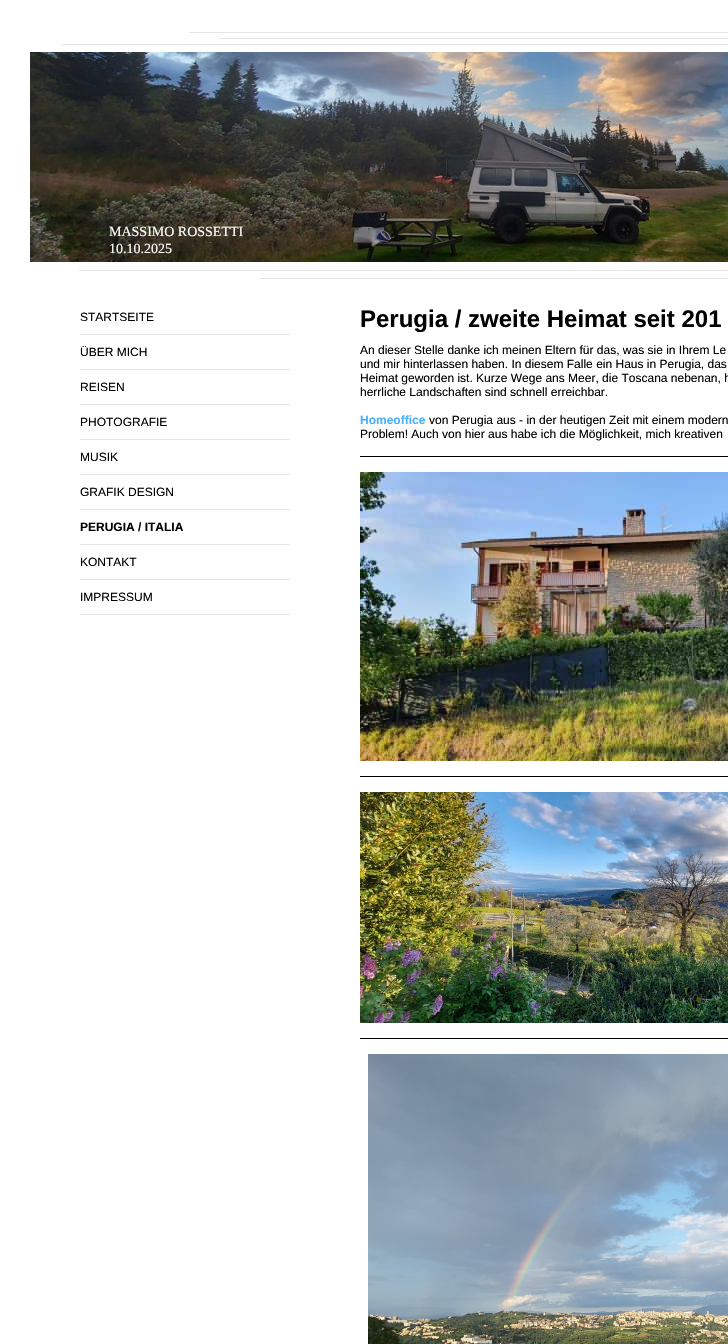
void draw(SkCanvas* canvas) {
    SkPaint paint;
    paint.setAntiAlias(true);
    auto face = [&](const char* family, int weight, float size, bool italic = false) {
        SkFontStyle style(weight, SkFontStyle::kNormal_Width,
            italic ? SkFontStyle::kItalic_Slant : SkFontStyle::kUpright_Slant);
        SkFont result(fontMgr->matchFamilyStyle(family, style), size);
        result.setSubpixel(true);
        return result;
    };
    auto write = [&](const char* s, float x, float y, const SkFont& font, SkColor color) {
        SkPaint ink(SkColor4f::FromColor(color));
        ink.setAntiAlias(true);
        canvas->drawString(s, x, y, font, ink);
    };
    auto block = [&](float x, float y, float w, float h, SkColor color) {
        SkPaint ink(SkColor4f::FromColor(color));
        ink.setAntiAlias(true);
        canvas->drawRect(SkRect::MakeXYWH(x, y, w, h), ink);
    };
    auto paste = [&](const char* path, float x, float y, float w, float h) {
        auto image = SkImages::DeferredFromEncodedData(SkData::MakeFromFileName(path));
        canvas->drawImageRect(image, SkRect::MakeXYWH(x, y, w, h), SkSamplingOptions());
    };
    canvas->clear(SK_ColorWHITE);
    paste("pic1.png", 61, 32, 667, 247);
    paste("pic2.png", 30, 52, 698, 210);
    auto kFont1 = face("Liberation Serif", 400, 14);
    write("MASSIMO ROSSETTI", 109, 236, kFont1, SK_ColorWHITE);
    write("10.10.2025", 109, 253, kFont1, SK_ColorWHITE);
    block(80, 334, 210, 1, SkColorSetRGB(229, 229, 229));
    auto kFont2 = face("Liberation Sans", 400, 12);
    write("STARTSEITE", 80, 321, kFont2, SK_ColorBLACK);
    block(80, 369, 210, 1, SkColorSetRGB(229, 229, 229));
    write("ÜBER MICH", 80, 356, kFont2, SK_ColorBLACK);
    block(80, 404, 210, 1, SkColorSetRGB(229, 229, 229));
    write("REISEN", 80, 391, kFont2, SK_ColorBLACK);
    block(80, 439, 210, 1, SkColorSetRGB(229, 229, 229));
    write("PHOTOGRAFIE", 80, 426, kFont2, SK_ColorBLACK);
    block(80, 474, 210, 1, SkColorSetRGB(229, 229, 229));
    write("MUSIK", 80, 461, kFont2, SK_ColorBLACK);
    block(80, 509, 210, 1, SkColorSetRGB(229, 229, 229));
    write("GRAFIK DESIGN", 80, 496, kFont2, SK_ColorBLACK);
    block(80, 544, 210, 1, SkColorSetRGB(229, 229, 229));
    auto kFont3 = face("Liberation Sans", 700, 12);
    write("PERUGIA / ITALIA", 80, 531, kFont3, SK_ColorBLACK);
    block(80, 579, 210, 1, SkColorSetRGB(229, 229, 229));
    write("KONTAKT", 80, 566, kFont2, SK_ColorBLACK);
    block(80, 614, 210, 1, SkColorSetRGB(229, 229, 229));
    write("IMPRESSUM", 80, 601, kFont2, SK_ColorBLACK);
    auto kFont4 = face("Liberation Sans", 700, 24);
    write("Perugia / zweite Heimat seit 201", 360, 327, kFont4, SK_ColorBLACK);
    write("An dieser Stelle danke ich meinen Eltern für das, was sie in Ihrem Le", 360, 354, kFont2, SK_ColorBLACK);
    write("und mir hinterlassen haben. In diesem Falle ein Haus in Perugia, das", 360, 368, kFont2, SK_ColorBLACK);
    write("Heimat geworden ist. Kurze Wege ans Meer, die Toscana nebenan, h", 360, 382, kFont2, SK_ColorBLACK);
    write("herrliche Landschaften sind schnell erreichbar.", 360, 396, kFont2, SK_ColorBLACK);
    write("Homeoffice", 360, 424, kFont3, SkColorSetRGB(72, 178, 253));
    write("von Perugia aus - in der heutigen Zeit mit einem modern", 429, 424, kFont2, SK_ColorBLACK);
    write("Problem! Auch von hier aus habe ich die Möglichkeit, mich kreativen", 360, 438, kFont2, SK_ColorBLACK);
    block(360, 456, 368, 1, SK_ColorBLACK);
    paste("pic3.png", 360, 472, 368, 289);
    block(360, 776, 368, 1, SK_ColorBLACK);
    paste("pic4.png", 360, 792, 368, 231);
    block(360, 1038, 368, 1, SK_ColorBLACK);
    paste("pic5.png", 368, 1054, 360, 290);
}
